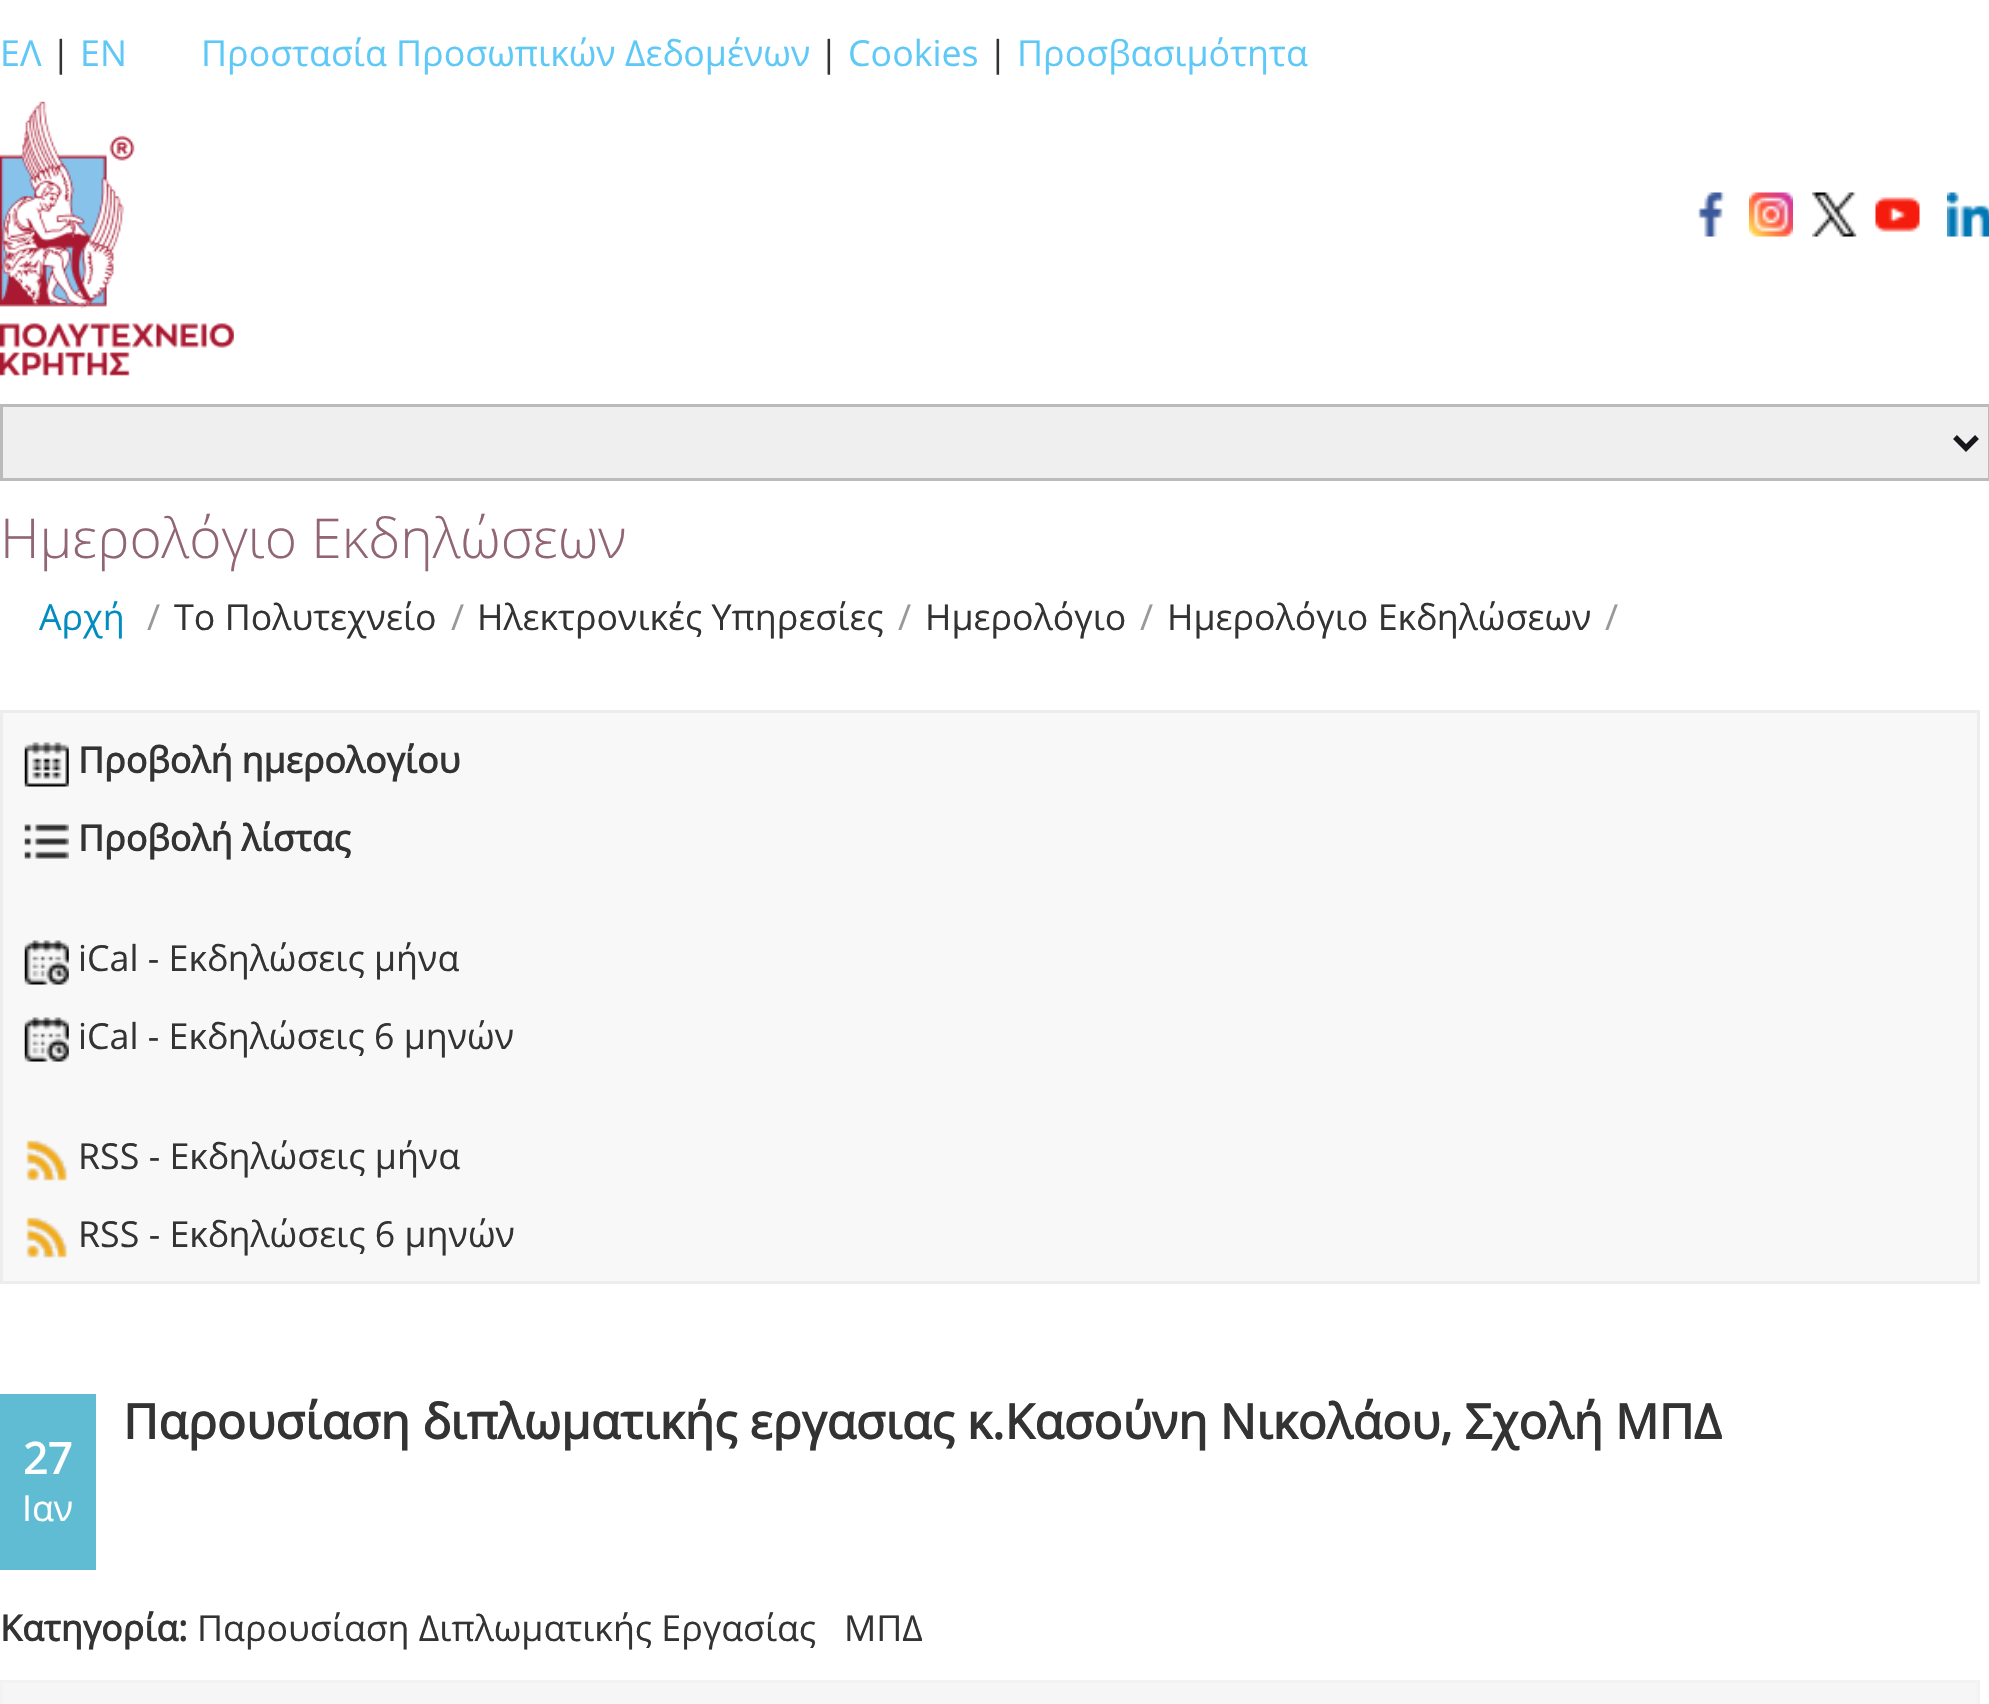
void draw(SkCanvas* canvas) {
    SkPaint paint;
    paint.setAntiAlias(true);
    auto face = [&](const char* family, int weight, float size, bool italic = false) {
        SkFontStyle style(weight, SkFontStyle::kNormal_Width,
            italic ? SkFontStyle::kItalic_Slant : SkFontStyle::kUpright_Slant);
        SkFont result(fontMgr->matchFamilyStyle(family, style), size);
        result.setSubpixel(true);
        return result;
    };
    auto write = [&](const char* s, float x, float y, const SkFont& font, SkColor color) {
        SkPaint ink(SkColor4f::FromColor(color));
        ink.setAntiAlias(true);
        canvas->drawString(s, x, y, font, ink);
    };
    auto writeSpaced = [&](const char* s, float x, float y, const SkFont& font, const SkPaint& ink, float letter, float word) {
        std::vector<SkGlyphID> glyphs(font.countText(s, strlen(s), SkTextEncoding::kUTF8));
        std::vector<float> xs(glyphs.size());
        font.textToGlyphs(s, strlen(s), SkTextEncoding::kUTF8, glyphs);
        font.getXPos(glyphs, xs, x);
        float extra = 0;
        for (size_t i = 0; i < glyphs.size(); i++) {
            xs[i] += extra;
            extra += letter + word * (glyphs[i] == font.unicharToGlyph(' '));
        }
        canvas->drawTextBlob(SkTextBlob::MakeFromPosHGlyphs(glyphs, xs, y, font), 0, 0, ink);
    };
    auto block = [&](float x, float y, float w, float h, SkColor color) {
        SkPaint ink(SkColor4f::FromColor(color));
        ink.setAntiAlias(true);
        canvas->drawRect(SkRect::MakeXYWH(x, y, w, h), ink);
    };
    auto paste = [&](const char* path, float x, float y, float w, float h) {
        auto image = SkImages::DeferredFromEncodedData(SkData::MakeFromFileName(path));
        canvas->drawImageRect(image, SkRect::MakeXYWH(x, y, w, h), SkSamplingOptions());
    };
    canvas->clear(SK_ColorWHITE);
    auto kFont1 = face("Open Sans", 400, 35.75f);
    write("ΕΛ", 0, 66, kFont1, SkColorSetRGB(94, 201, 247));
    write("|", 51, 66, kFont1, SkColorSetRGB(51, 51, 51));
    write("EN", 80, 66, kFont1, SkColorSetRGB(94, 201, 247));
    write("Προστασία Προσωπικών Δεδομένων", 201, 66, kFont1, SkColorSetRGB(94, 201, 247));
    write("|", 819, 66, kFont1, SkColorSetRGB(51, 51, 51));
    write("Cookies", 848, 66, kFont1, SkColorSetRGB(94, 201, 247));
    write("|", 988, 66, kFont1, SkColorSetRGB(51, 51, 51));
    write("Προσβασιμότητα", 1017, 66, kFont1, SkColorSetRGB(94, 201, 247));
    paste("pic1.png", 0, 101, 234, 275);
    paste("pic2.png", 1698, 192, 27, 45);
    paste("pic3.png", 1749, 192, 44, 45);
    paste("pic4.png", 1812, 192, 45, 45);
    paste("pic5.png", 1875, 197, 45, 35);
    paste("pic6.png", 1947, 192, 42, 45);
    paint.setColor(SkColorSetRGB(239, 239, 239));
    canvas->drawRect(SkRect::MakeXYWH(1.5f, 405.5f, 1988, 74), paint);
    paint.setStyle(SkPaint::kStroke_Style);
    paint.setStrokeWidth(3);
    paint.setColor(SkColorSetRGB(187, 187, 187));
    canvas->drawRect(SkRect::MakeXYWH(1.5f, 405.5f, 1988, 74), paint);
    paint.setStrokeWidth(5.5f);
    paint.setColor(SkColorSetRGB(22, 23, 27));
    canvas->drawPath(SkPathBuilder().moveTo(1955, 437).lineTo(1966, 448).lineTo(1977, 437).detach(), paint);
    auto kFont2 = face("Open Sans", 300, 55);
    write("Ημερολόγιο Εκδηλώσεων", 0, 558, kFont2, SkColorSetRGB(145, 101, 118));
    write("Αρχή", 39, 630, kFont1, SkColorSetRGB(2, 141, 192));
    write("/", 147, 630, kFont1, SkColorSetRGB(153, 153, 153));
    write("Το Πολυτεχνείο", 174, 630, kFont1, SkColorSetRGB(51, 51, 51));
    write("/", 451, 630, kFont1, SkColorSetRGB(153, 153, 153));
    write("Ηλεκτρονικές Υπηρεσίες", 477, 630, kFont1, SkColorSetRGB(51, 51, 51));
    write("/", 898, 630, kFont1, SkColorSetRGB(153, 153, 153));
    write("Ημερολόγιο", 925, 630, kFont1, SkColorSetRGB(51, 51, 51));
    write("/", 1140, 630, kFont1, SkColorSetRGB(153, 153, 153));
    write("Ημερολόγιο Εκδηλώσεων", 1167, 630, kFont1, SkColorSetRGB(51, 51, 51));
    write("/", 1605, 630, kFont1, SkColorSetRGB(153, 153, 153));
    paint.setStyle(SkPaint::kFill_Style);
    paint.setColor(SkColorSetRGB(248, 248, 248));
    canvas->drawRect(SkRect::MakeXYWH(1.5f, 711.5f, 1977, 571), paint);
    paint.setStyle(SkPaint::kStroke_Style);
    paint.setStrokeWidth(3);
    paint.setColor(SkColorSetRGB(237, 237, 237));
    canvas->drawRect(SkRect::MakeXYWH(1.5f, 711.5f, 1977, 571), paint);
    paste("pic7.png", 24, 742, 45, 45);
    auto kFont3 = face("Open Sans", 700, 35.75f);
    write("Προβολή ημερολογίου", 78, 773, kFont3, SkColorSetRGB(51, 51, 51));
    paste("pic8.png", 24, 824, 45, 35);
    write("Προβολή λίστας", 78, 851, kFont3, SkColorSetRGB(51, 51, 51));
    paste("pic9.png", 24, 940, 45, 45);
    write("iCal - Εκδηλώσεις μήνα", 78, 971, kFont1, SkColorSetRGB(51, 51, 51));
    paste("pic9.png", 24, 1017, 45, 45);
    write("iCal - Εκδηλώσεις 6 μηνών", 78, 1049, kFont1, SkColorSetRGB(51, 51, 51));
    paste("pic10.png", 26, 1140, 41, 41);
    write("RSS - Εκδηλώσεις μήνα", 78, 1169, kFont1, SkColorSetRGB(51, 51, 51));
    paste("pic10.png", 26, 1217, 41, 41);
    write("RSS - Εκδηλώσεις 6 μηνών", 78, 1247, kFont1, SkColorSetRGB(51, 51, 51));
    auto kFont4 = face("Open Sans", 700, 48.25f);
    paint.setStyle(SkPaint::kFill_Style);
    paint.setColor(SkColorSetRGB(51, 51, 51));
    writeSpaced("Παρουσίαση διπλωματικής εργασιας κ.Κασούνη Νικολάου, Σχολή ΜΠΔ", 123, 1439, kFont4, paint, 0, -0.25f);
    block(0, 1394, 96, 176, SkColorSetRGB(96, 188, 211));
    auto kFont5 = face("Open Sans", 700, 43);
    write("27", 23, 1474, kFont5, SK_ColorWHITE);
    write("Ιαν", 22, 1521, kFont1, SK_ColorWHITE);
    write("Κατηγορία:", 0, 1641, kFont3, SkColorSetRGB(51, 51, 51));
    write("Παρουσίαση Διπλωματικής Εργασίας", 197, 1641, kFont1, SkColorSetRGB(51, 51, 51));
    write("ΜΠΔ", 844, 1641, kFont1, SkColorSetRGB(51, 51, 51));
    block(3, 1683, 1974, 21, SkColorSetRGB(246, 246, 246));
    block(0, 1680, 1980, 3, SkColorSetRGB(243, 243, 243));
    block(1977, 1680, 3, 24, SkColorSetRGB(243, 243, 243));
    block(0, 1680, 3, 24, SkColorSetRGB(243, 243, 243));
}
